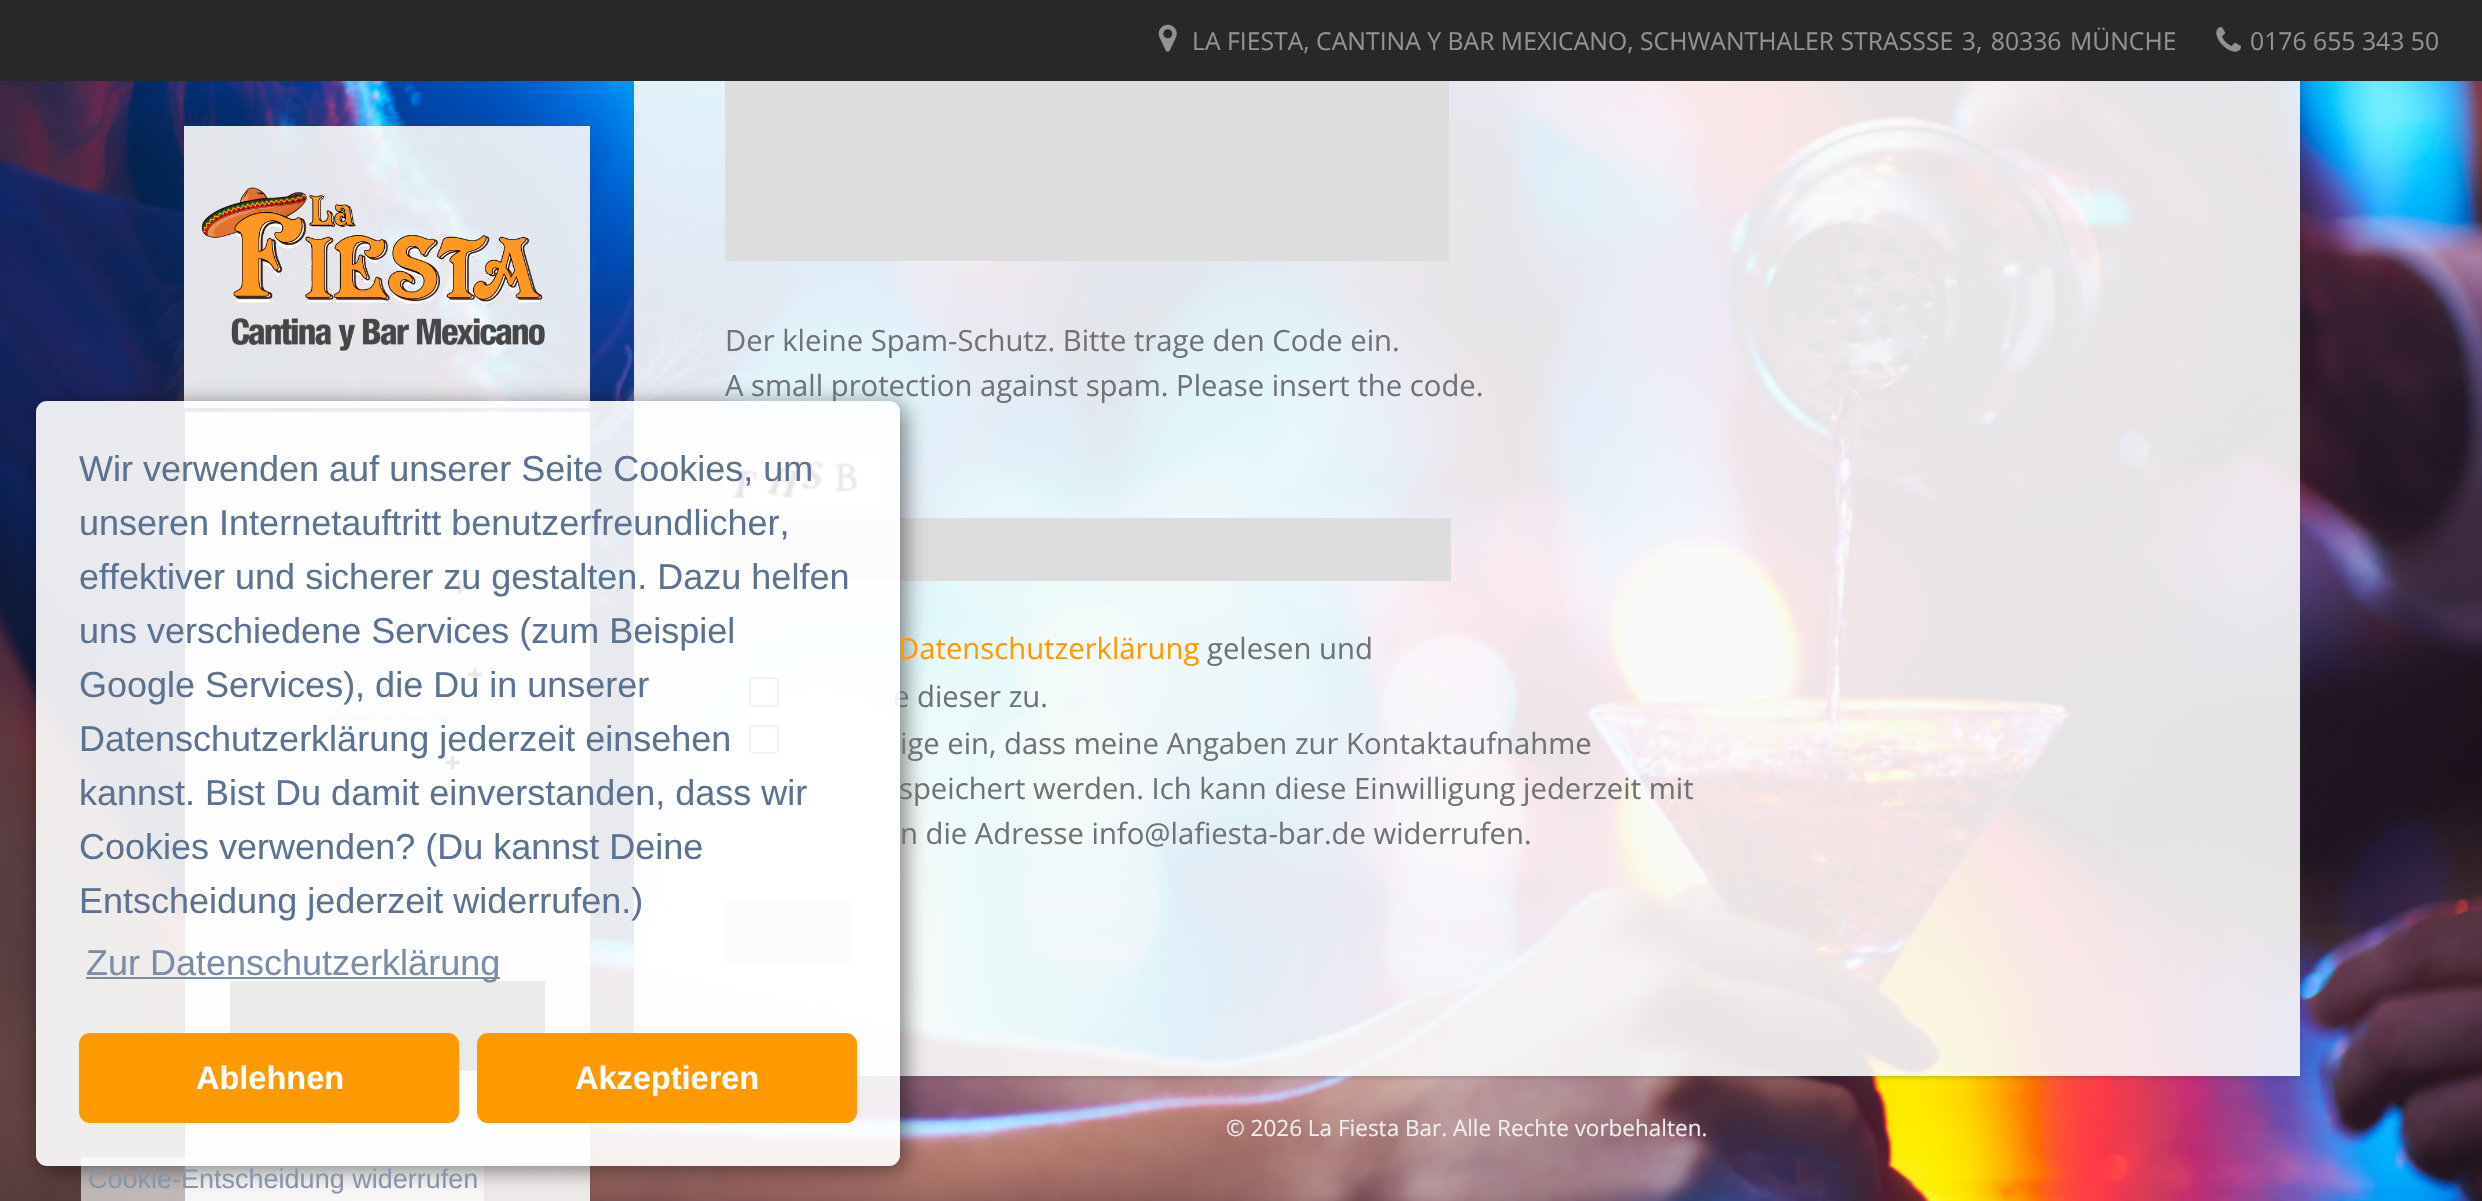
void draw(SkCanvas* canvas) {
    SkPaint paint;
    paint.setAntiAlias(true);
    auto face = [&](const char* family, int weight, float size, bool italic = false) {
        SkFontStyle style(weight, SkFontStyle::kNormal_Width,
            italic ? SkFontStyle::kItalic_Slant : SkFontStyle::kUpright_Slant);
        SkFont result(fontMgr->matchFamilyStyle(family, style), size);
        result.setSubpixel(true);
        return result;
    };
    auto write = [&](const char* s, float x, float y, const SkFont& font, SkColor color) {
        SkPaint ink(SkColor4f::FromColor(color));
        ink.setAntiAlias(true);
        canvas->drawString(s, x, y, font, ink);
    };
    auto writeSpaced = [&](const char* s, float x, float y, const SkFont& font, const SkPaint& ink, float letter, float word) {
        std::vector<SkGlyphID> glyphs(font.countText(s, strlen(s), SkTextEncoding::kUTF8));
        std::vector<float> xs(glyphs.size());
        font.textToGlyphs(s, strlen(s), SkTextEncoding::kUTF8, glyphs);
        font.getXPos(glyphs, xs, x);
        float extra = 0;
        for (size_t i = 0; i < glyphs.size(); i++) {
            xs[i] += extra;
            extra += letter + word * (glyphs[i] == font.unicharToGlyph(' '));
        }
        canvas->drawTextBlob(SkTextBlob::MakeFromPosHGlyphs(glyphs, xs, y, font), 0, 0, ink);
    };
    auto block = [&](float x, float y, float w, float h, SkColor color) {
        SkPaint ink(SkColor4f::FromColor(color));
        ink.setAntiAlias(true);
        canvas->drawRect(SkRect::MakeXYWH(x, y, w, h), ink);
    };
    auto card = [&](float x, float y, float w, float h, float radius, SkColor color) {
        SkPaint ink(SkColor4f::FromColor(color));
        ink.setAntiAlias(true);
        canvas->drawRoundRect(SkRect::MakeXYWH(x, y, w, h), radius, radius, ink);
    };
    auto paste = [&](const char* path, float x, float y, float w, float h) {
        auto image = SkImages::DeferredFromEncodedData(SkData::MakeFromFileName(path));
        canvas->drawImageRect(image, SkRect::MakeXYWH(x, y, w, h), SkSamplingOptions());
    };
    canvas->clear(SK_ColorWHITE);
    paste("pic3.png", 0, 81, 2482, 1120);
    canvas->save();
    canvas->clipPath(SkPathBuilder(SkPathFillType::kEvenOdd).moveTo(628, 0).lineTo(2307, 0).lineTo(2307, 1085).lineTo(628, 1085).close().moveTo(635, -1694).lineTo(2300, -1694).lineTo(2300, 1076).lineTo(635, 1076).close().detach(), true);
    paint.setColor(SkColorSetARGB(59, 30, 70, 70));
    paint.setMaskFilter(SkMaskFilter::MakeBlur(kNormal_SkBlurStyle, 2));
    canvas->drawRect(SkRect::MakeXYWH(635, -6, 1665, 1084), paint);
    paint.setMaskFilter(nullptr);
    canvas->restore();
    block(0, 0, 2482, 81, SkColorSetRGB(38, 40, 42));
    paste("pic1.png", 1158, 24, 19, 28);
    auto kFont1 = face("Open Sans", 400, 24.75f);
    write("LA FIESTA, CANTINA Y BAR MEXICANO, SCHWANTHALER STRASS", 1192, 50, kFont1, SkColorSetRGB(144, 146, 148));
    paint.setColor(SkColorSetRGB(144, 146, 148));
    writeSpaced("SE 3, 80336 MÜNCHE", 1926, 50, kFont1, paint, 0, 2);
    paste("pic2.png", 2216, 27, 25, 25);
    write("0176 655 343 50", 2250, 50, kFont1, SkColorSetRGB(144, 146, 148));
    canvas->save();
    canvas->clipPath(SkPathBuilder(SkPathFillType::kEvenOdd).moveTo(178, 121).lineTo(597, 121).lineTo(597, 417).lineTo(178, 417).close().moveTo(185, 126).lineTo(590, 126).lineTo(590, 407).lineTo(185, 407).close().detach(), true);
    paint.setColor(SkColorSetARGB(59, 30, 70, 70));
    paint.setMaskFilter(SkMaskFilter::MakeBlur(kNormal_SkBlurStyle, 2));
    canvas->drawRect(SkRect::MakeXYWH(185, 128, 405, 282), paint);
    paint.setMaskFilter(nullptr);
    canvas->restore();
    block(184, 126, 406, 282, SkColorSetARGB(230, 249, 249, 249));
    canvas->save();
    canvas->clipPath(SkPathBuilder(SkPathFillType::kEvenOdd).moveTo(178, 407).lineTo(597, 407).lineTo(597, 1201).lineTo(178, 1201).close().moveTo(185, 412).lineTo(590, 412).lineTo(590, 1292).lineTo(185, 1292).close().detach(), true);
    paint.setMaskFilter(SkMaskFilter::MakeBlur(kNormal_SkBlurStyle, 2));
    canvas->drawRect(SkRect::MakeXYWH(185, 414, 405, 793), paint);
    paint.setMaskFilter(nullptr);
    canvas->restore();
    paste("pic5.png", 185, 411, 405, 790);
    paint.setStyle(SkPaint::kStroke_Style);
    paint.setStrokeWidth(2.2f);
    paint.setColor(SkColorSetRGB(187, 187, 187));
    paint.setPathEffect(SkDashPathEffect::Make({{6.75f, 4.5f}}, 0));
    canvas->drawPath(SkPathBuilder().moveTo(317, 543.5f).lineTo(459, 543.5f).detach(), paint);
    paint.setPathEffect(nullptr);
    paste("pic6.png", 452, 579, 15, 15);
    paint.setPathEffect(SkDashPathEffect::Make({{6.75f, 4.5f}}, 0));
    canvas->drawPath(SkPathBuilder().moveTo(317, 631).lineTo(459, 631).detach(), paint);
    paint.setPathEffect(nullptr);
    paste("pic7.png", 468, 667, 15, 15);
    paint.setPathEffect(SkDashPathEffect::Make({{6.75f, 4.5f}}, 0));
    canvas->drawPath(SkPathBuilder().moveTo(317, 719).lineTo(459, 719).detach(), paint);
    paint.setPathEffect(nullptr);
    paste("pic8.png", 445, 755, 15, 15);
    paint.setPathEffect(SkDashPathEffect::Make({{6.75f, 4.5f}}, 0));
    canvas->drawPath(SkPathBuilder().moveTo(317, 806.5f).lineTo(459, 806.5f).detach(), paint);
    paint.setPathEffect(nullptr);
    paint.setPathEffect(SkDashPathEffect::Make({{6.75f, 4.5f}}, 0));
    canvas->drawPath(SkPathBuilder().moveTo(317, 894.5f).lineTo(459, 894.5f).detach(), paint);
    paint.setPathEffect(nullptr);
    paint.setPathEffect(SkDashPathEffect::Make({{6.75f, 4.5f}}, 0));
    canvas->drawPath(SkPathBuilder().moveTo(317, 982).lineTo(459, 982).detach(), paint);
    paint.setPathEffect(nullptr);
    block(230, 981, 315, 90, SkColorSetRGB(38, 40, 42));
    paint.setPathEffect(SkDashPathEffect::Make({{6.75f, 4.5f}}, 0));
    canvas->drawPath(SkPathBuilder().moveTo(317, 1157.5f).lineTo(459, 1157.5f).detach(), paint);
    paint.setPathEffect(nullptr);
    block(634, 81, 1666, 995, SkColorSetARGB(230, 249, 249, 249));
    paste("pic9.png", 724, 452, 163, 55);
    block(725, 518, 726, 63, SkColorSetRGB(221, 221, 221));
    paint.setStyle(SkPaint::kFill_Style);
    paint.setColor(SK_ColorWHITE);
    canvas->drawRoundRect(SkRect::MakeXYWH(750, 678, 28, 28), 4, 4, paint);
    paint.setStyle(SkPaint::kStroke_Style);
    paint.setStrokeWidth(2);
    paint.setColor(SkColorSetRGB(118, 118, 118));
    canvas->drawRoundRect(SkRect::MakeXYWH(750, 678, 28, 28), 4, 4, paint);
    paint.setStyle(SkPaint::kFill_Style);
    paint.setColor(SK_ColorWHITE);
    canvas->drawRoundRect(SkRect::MakeXYWH(750, 726, 28, 27), 4, 4, paint);
    paint.setStyle(SkPaint::kStroke_Style);
    paint.setColor(SkColorSetRGB(118, 118, 118));
    canvas->drawRoundRect(SkRect::MakeXYWH(750, 726, 28, 27), 4, 4, paint);
    block(725, 900, 126, 63, SkColorSetRGB(221, 221, 221));
    card(81, 1157, 403, 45, 2, SkColorSetARGB(161, 255, 255, 255));
    canvas->save();
    canvas->clipPath(SkPathBuilder(SkPathFillType::kEvenOdd).moveTo(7, 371).lineTo(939, 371).lineTo(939, 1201).lineTo(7, 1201).close().moveTo(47, 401).lineTo(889, 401).cubicTo(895, 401, 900, 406, 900, 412).lineTo(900, 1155).cubicTo(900, 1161, 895, 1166, 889, 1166).lineTo(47, 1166).cubicTo(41, 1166, 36, 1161, 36, 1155).lineTo(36, 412).cubicTo(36, 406, 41, 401, 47, 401).close().detach(), true);
    paint.setStyle(SkPaint::kFill_Style);
    paint.setColor(SkColorSetARGB(128, 0, 0, 0));
    paint.setMaskFilter(SkMaskFilter::MakeBlur(kNormal_SkBlurStyle, 11));
    canvas->drawRoundRect(SkRect::MakeXYWH(41, 405, 864, 765), 11, 11, paint);
    paint.setMaskFilter(nullptr);
    canvas->restore();
    auto kFont2 = face("Open Sans", 400, 29.25f);
    write("A small protection against spam. Please insert the code.", 725, 396, kFont2, SkColorSetRGB(112, 114, 116));
    write("e dieser zu.", 893, 707, kFont2, SkColorSetRGB(112, 114, 116));
    card(36, 401, 864, 765, 11, SkColorSetARGB(230, 255, 255, 255));
    auto kFont3 = face("Liberation Sans", 400, 36);
    write("Wir verwenden auf unserer Seite Cookies, um", 79, 481, kFont3, SkColorSetRGB(92, 114, 145));
    write("unseren Internetauftritt benutzerfreundlicher,", 79, 535, kFont3, SkColorSetRGB(92, 114, 145));
    write("effektiver und sicherer zu gestalten. Dazu helfen", 79, 589, kFont3, SkColorSetRGB(92, 114, 145));
    write("uns verschiedene Services (zum Beispiel", 79, 643, kFont3, SkColorSetRGB(92, 114, 145));
    write("Google Services), die Du in unserer", 79, 697, kFont3, SkColorSetRGB(92, 114, 145));
    write("Datenschutzerklärung jederzeit einsehen", 79, 751, kFont3, SkColorSetRGB(92, 114, 145));
    write("kannst. Bist Du damit einverstanden, dass wir", 79, 805, kFont3, SkColorSetRGB(92, 114, 145));
    write("Cookies verwenden? (Du kannst Deine", 79, 859, kFont3, SkColorSetRGB(92, 114, 145));
    write("Entscheidung jederzeit widerrufen.)", 79, 913, kFont3, SkColorSetRGB(92, 114, 145));
    block(86, 977, 414, 2, SkColorSetARGB(204, 92, 114, 145));
    write("Zur Datenschutzerklärung", 86, 975, kFont3, SkColorSetRGB(123, 141, 166));
    card(79, 1033, 380, 90, 11, SkColorSetRGB(255, 153, 0));
    auto kFont4 = face("Liberation Sans", 700, 32.5f);
    write("Ablehnen", 196, 1089, kFont4, SK_ColorWHITE);
    card(477, 1033, 380, 90, 11, SkColorSetRGB(255, 153, 0));
    write("Akzeptieren", 575, 1089, kFont4, SK_ColorWHITE);
    paste("pic4.png", 202, 187, 343, 164);
    block(725, 81, 724, 180, SkColorSetRGB(221, 221, 221));
    write("Der kleine Spam-Schutz. Bitte trage den Code ein.", 725, 351, kFont2, SkColorSetRGB(112, 114, 116));
    write("Datenschutzerklärung", 898, 659, kFont2, SkColorSetRGB(255, 153, 0));
    write("gelesen und", 1207, 659, kFont2, SkColorSetRGB(112, 114, 116));
    write("ige ein,", 900, 754, kFont2, SkColorSetRGB(112, 114, 116));
    write("dass meine Angaben zur Kontaktaufnahme", 1004, 754, kFont2, SkColorSetRGB(112, 114, 116));
    write("speichert werden. Ich kann diese Einwilligung jederzeit mit", 899, 799, kFont2, SkColorSetRGB(112, 114, 116));
    write("n die Adresse info@lafiesta-bar.de widerrufen.", 900, 844, kFont2, SkColorSetRGB(112, 114, 116));
    auto kFont5 = face("Open Sans", 400, 22.5f);
    write("© 2026 La Fiesta Bar. Alle Rechte vorbehalten.", 1226, 1136, kFont5, SkColorSetRGB(238, 238, 238));
    auto kFont6 = face("Liberation Sans", 400, 27);
    write("Cookie-Entscheidung widerrufen", 88, 1188, kFont6, SkColorSetRGB(135, 149, 171));
}
